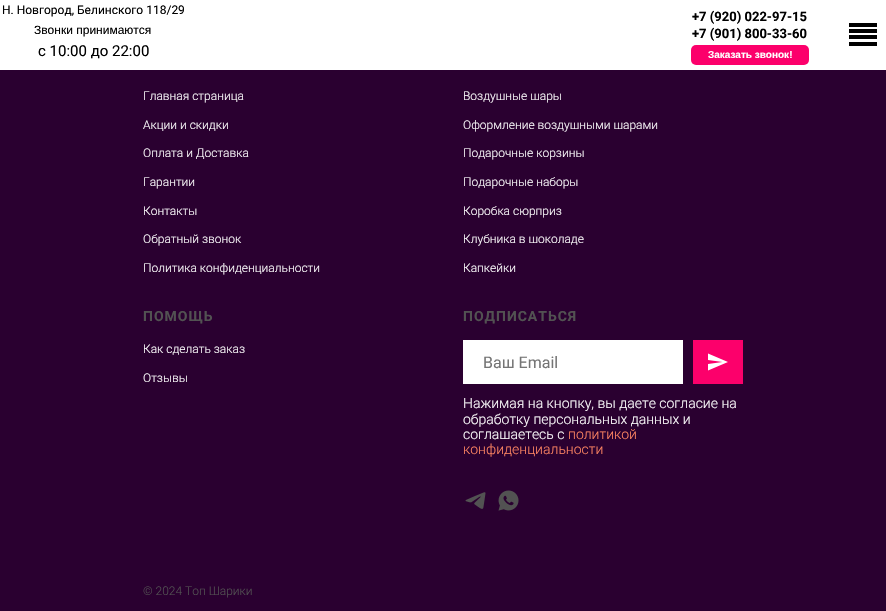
void draw(SkCanvas* canvas) {
    SkPaint paint;
    paint.setAntiAlias(true);
    auto face = [&](const char* family, int weight, float size, bool italic = false) {
        SkFontStyle style(weight, SkFontStyle::kNormal_Width,
            italic ? SkFontStyle::kItalic_Slant : SkFontStyle::kUpright_Slant);
        SkFont result(fontMgr->matchFamilyStyle(family, style), size);
        result.setSubpixel(true);
        return result;
    };
    auto write = [&](const char* s, float x, float y, const SkFont& font, SkColor color) {
        SkPaint ink(SkColor4f::FromColor(color));
        ink.setAntiAlias(true);
        canvas->drawString(s, x, y, font, ink);
    };
    auto writeSpaced = [&](const char* s, float x, float y, const SkFont& font, const SkPaint& ink, float letter, float word) {
        std::vector<SkGlyphID> glyphs(font.countText(s, strlen(s), SkTextEncoding::kUTF8));
        std::vector<float> xs(glyphs.size());
        font.textToGlyphs(s, strlen(s), SkTextEncoding::kUTF8, glyphs);
        font.getXPos(glyphs, xs, x);
        float extra = 0;
        for (size_t i = 0; i < glyphs.size(); i++) {
            xs[i] += extra;
            extra += letter + word * (glyphs[i] == font.unicharToGlyph(' '));
        }
        canvas->drawTextBlob(SkTextBlob::MakeFromPosHGlyphs(glyphs, xs, y, font), 0, 0, ink);
    };
    auto block = [&](float x, float y, float w, float h, SkColor color) {
        SkPaint ink(SkColor4f::FromColor(color));
        ink.setAntiAlias(true);
        canvas->drawRect(SkRect::MakeXYWH(x, y, w, h), ink);
    };
    auto card = [&](float x, float y, float w, float h, float radius, SkColor color) {
        SkPaint ink(SkColor4f::FromColor(color));
        ink.setAntiAlias(true);
        canvas->drawRoundRect(SkRect::MakeXYWH(x, y, w, h), radius, radius, ink);
    };
    auto paste = [&](const char* path, float x, float y, float w, float h) {
        auto image = SkImages::DeferredFromEncodedData(SkData::MakeFromFileName(path));
        canvas->drawImageRect(image, SkRect::MakeXYWH(x, y, w, h), SkSamplingOptions());
    };
    canvas->clear(SkColorSetRGB(42, 0, 48));
    block(0, 0, 886, 70, SK_ColorWHITE);
    auto kFont1 = face("Roboto", 400, 12);
    write("Н. Новгород, Белинского 118/29", 2, 14, kFont1, SK_ColorBLACK);
    auto kFont2 = face("Roboto", 700, 13);
    write("+7 (920) 022-97-15", 692, 21, kFont2, SK_ColorBLACK);
    auto kFont3 = face("Liberation Sans", 400, 12);
    write("Звонки принимаются", 34, 34, kFont3, SK_ColorBLACK);
    write("+7 (901) 800-33-60", 692, 38, kFont2, SK_ColorBLACK);
    block(849, 23, 28, 4, SK_ColorBLACK);
    block(849, 29, 28, 4, SK_ColorBLACK);
    block(849, 35, 28, 4, SK_ColorBLACK);
    block(849, 42, 28, 4, SK_ColorBLACK);
    auto kFont4 = face("Roboto", 400, 15);
    write("с 10:00 до 22:00", 38, 56, kFont4, SK_ColorBLACK);
    card(691, 45, 118, 20, 5, SkColorSetRGB(252, 0, 107));
    auto kFont5 = face("Liberation Sans", 700, 10);
    write("Заказать звонок!", 708, 58, kFont5, SK_ColorWHITE);
    auto kFont6 = face("Roboto", 300, 12);
    write("Главная страница", 143, 100, kFont6, SK_ColorWHITE);
    write("Акции и скидки", 143, 129, kFont6, SK_ColorWHITE);
    write("Оплата и Доставка", 143, 157, kFont6, SK_ColorWHITE);
    write("Гарантии", 143, 186, kFont6, SK_ColorWHITE);
    write("Контакты", 143, 215, kFont6, SK_ColorWHITE);
    write("Обратный звонок", 143, 243, kFont6, SK_ColorWHITE);
    write("Политика конфиденциальности", 143, 272, kFont6, SK_ColorWHITE);
    write("Воздушные шары", 463, 100, kFont6, SK_ColorWHITE);
    write("Оформление воздушными шарами", 463, 129, kFont6, SK_ColorWHITE);
    write("Подарочные корзины", 463, 157, kFont6, SK_ColorWHITE);
    write("Подарочные наборы", 463, 186, kFont6, SK_ColorWHITE);
    write("Коробка сюрприз", 463, 215, kFont6, SK_ColorWHITE);
    write("Клубника в шоколаде", 463, 243, kFont6, SK_ColorWHITE);
    write("Капкейки", 463, 272, kFont6, SK_ColorWHITE);
    auto kFont7 = face("Roboto", 700, 14);
    paint.setColor(SkColorSetRGB(82, 82, 82));
    writeSpaced("ПОМОЩЬ", 143, 321, kFont7, paint, 1, 0);
    write("Как сделать заказ", 143, 353, kFont6, SK_ColorWHITE);
    write("Отзывы", 143, 382, kFont6, SK_ColorWHITE);
    writeSpaced("ПОДПИСАТЬСЯ", 463, 321, kFont7, paint, 1, 0);
    block(463, 340, 220, 44, SK_ColorWHITE);
    auto kFont8 = face("Roboto", 400, 16);
    write("Ваш Email", 483, 368, kFont8, SkColorSetRGB(117, 117, 117));
    block(693, 340, 50, 44, SkColorSetRGB(252, 0, 107));
    paint.setColor(SK_ColorWHITE);
    canvas->drawPath(SkPathBuilder().moveTo(708, 370.5f).lineTo(728, 362).lineTo(708, 353.5f).lineTo(708, 360).lineTo(722.5f, 362).lineTo(708, 364).close().detach(), paint);
    auto kFont9 = face("Roboto", 300, 14);
    write("Нажимая на кнопку, вы даете согласие на", 463, 408, kFont9, SK_ColorWHITE);
    write("обработку персональных данных и", 463, 424, kFont9, SK_ColorWHITE);
    write("соглашаетесь c", 463, 439, kFont9, SK_ColorWHITE);
    write("политикой", 568, 439, kFont9, SkColorSetRGB(255, 133, 98));
    write("конфиденциальности", 463, 454, kFont9, SkColorSetRGB(255, 133, 98));
    paste("pic1.png", 465, 492, 21, 17);
    paste("pic2.png", 498, 490, 21, 21);
    write("© 2024 Топ Шарики", 143, 595, kFont6, SkColorSetRGB(82, 82, 82));
}
